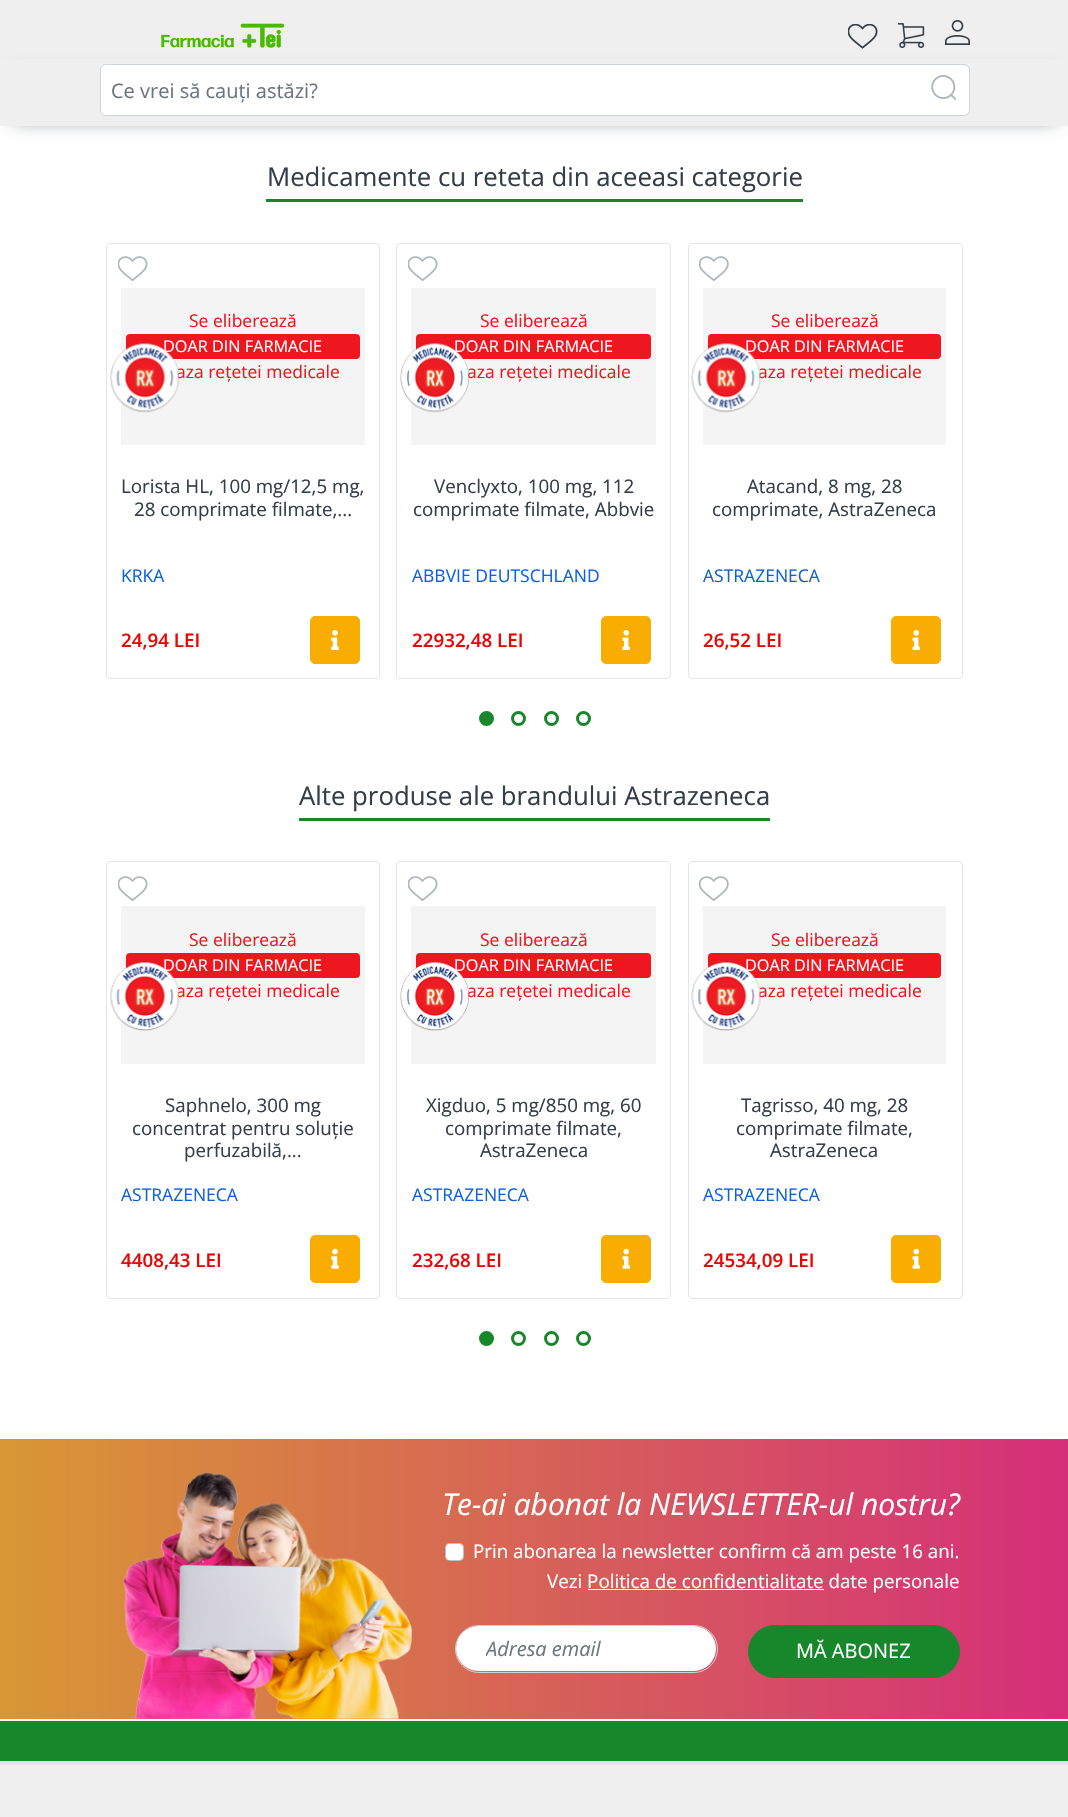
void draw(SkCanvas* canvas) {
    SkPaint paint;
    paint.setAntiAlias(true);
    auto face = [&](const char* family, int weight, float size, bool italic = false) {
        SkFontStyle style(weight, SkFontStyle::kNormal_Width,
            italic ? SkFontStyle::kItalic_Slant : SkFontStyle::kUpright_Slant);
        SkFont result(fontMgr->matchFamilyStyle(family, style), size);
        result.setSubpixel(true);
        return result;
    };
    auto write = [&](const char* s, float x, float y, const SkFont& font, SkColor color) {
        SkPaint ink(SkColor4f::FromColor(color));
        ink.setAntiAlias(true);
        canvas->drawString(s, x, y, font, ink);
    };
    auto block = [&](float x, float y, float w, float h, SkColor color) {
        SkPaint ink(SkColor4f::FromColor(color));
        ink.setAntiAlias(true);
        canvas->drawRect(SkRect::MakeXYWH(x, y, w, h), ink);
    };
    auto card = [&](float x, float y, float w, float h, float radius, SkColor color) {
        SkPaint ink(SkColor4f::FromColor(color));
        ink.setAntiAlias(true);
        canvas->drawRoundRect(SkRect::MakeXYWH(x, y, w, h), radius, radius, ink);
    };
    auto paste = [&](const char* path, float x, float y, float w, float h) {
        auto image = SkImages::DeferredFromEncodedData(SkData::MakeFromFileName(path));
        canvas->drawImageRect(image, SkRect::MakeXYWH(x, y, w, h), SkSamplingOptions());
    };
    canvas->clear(SK_ColorWHITE);
    block(0, 0, 1068, 126, SkColorSetRGB(240, 239, 239));
    canvas->save();
    canvas->clipPath(SkPathBuilder(SkPathFillType::kEvenOdd).moveTo(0, 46).lineTo(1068, 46).lineTo(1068, 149).lineTo(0, 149).close().moveTo(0, 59).lineTo(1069, 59).lineTo(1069, 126).lineTo(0, 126).close().detach(), true);
    paint.setColor(SkColorSetRGB(108, 117, 125));
    paint.setMaskFilter(SkMaskFilter::MakeBlur(kNormal_SkBlurStyle, 9.5f));
    canvas->drawRect(SkRect::MakeXYWH(13, 76, 1043, 43), paint);
    paint.setMaskFilter(nullptr);
    canvas->restore();
    paste("pic1.png", 161, 23, 124, 25);
    paste("pic2.png", 848, 24, 30, 25);
    paste("pic3.png", 898, 23, 27, 25);
    paste("pic4.png", 945, 20, 25, 25);
    paint.setColor(SK_ColorWHITE);
    canvas->drawRoundRect(SkRect::MakeXYWH(100.5f, 64.5f, 869, 51), 5.5f, 5.5f, paint);
    paint.setStyle(SkPaint::kStroke_Style);
    paint.setStrokeWidth(1);
    paint.setColor(SkColorSetRGB(206, 212, 218));
    canvas->drawRoundRect(SkRect::MakeXYWH(100.5f, 64.5f, 869, 51), 5.5f, 5.5f, paint);
    auto kFont1 = face("Open Sans", 400, 20);
    write("Ce vrei să cauți astăzi?", 111, 98, kFont1, SkColorSetRGB(108, 117, 125));
    paste("pic5.png", 931, 75, 25, 25);
    auto kFont2 = face("Open Sans", 400, 25.75f);
    write("Medicamente cu reteta din aceeasi categorie", 267, 186, kFont2, SkColorSetRGB(51, 62, 72));
    block(266, 199, 537, 3, SkColorSetRGB(24, 135, 43));
    paint.setColor(SkColorSetRGB(227, 229, 232));
    canvas->drawRoundRect(SkRect::MakeXYWH(106.5f, 243.5f, 273, 435), 3.5f, 3.5f, paint);
    paste("pic6.png", 118, 256, 30, 25);
    block(121, 288, 244, 157, SkColorSetRGB(244, 244, 244));
    card(126, 334, 234, 25, 4, SkColorSetRGB(238, 23, 31));
    auto kFont3 = face("Open Sans", 400, 16.25f);
    write("DOAR DIN FARMACIE", 163, 352, kFont3, SK_ColorWHITE);
    auto kFont4 = face("Open Sans", 400, 17.5f);
    write("aza rețetei medicale", 176, 378, kFont4, SkColorSetRGB(238, 23, 31));
    paste("pic7.png", 110, 342, 70, 71);
    write("Se eliberează", 189, 327, kFont4, SkColorSetRGB(238, 23, 31));
    auto kFont5 = face("Open Sans", 400, 18.75f);
    write("Lorista HL, 100 mg/12,5 mg,", 121, 493, kFont5, SkColorSetRGB(51, 62, 72));
    write("28 comprimate filmate,...", 134, 516, kFont5, SkColorSetRGB(51, 62, 72));
    write("KRKA", 121, 582, kFont4, SkColorSetRGB(11, 97, 222));
    auto kFont6 = face("Open Sans", 600, 18.75f);
    write("24,94 LEI", 121, 647, kFont6, SkColorSetRGB(237, 5, 5));
    paint.setStyle(SkPaint::kFill_Style);
    paint.setColor(SkColorSetRGB(249, 173, 0));
    canvas->drawRoundRect(SkRect::MakeXYWH(310.5f, 616.5f, 49, 47), 4.5f, 4.5f, paint);
    paint.setStyle(SkPaint::kStroke_Style);
    canvas->drawRoundRect(SkRect::MakeXYWH(310.5f, 616.5f, 49, 47), 4.5f, 4.5f, paint);
    paste("pic8.png", 331, 630, 8, 20);
    paint.setColor(SkColorSetRGB(227, 229, 232));
    canvas->drawRoundRect(SkRect::MakeXYWH(396.5f, 243.5f, 274, 435), 3.5f, 3.5f, paint);
    paste("pic6.png", 408, 256, 30, 25);
    block(411, 288, 245, 157, SkColorSetRGB(244, 244, 244));
    card(416, 334, 235, 25, 4, SkColorSetRGB(238, 23, 31));
    write("DOAR DIN FARMACIE", 454, 352, kFont3, SK_ColorWHITE);
    write("aza rețetei medicale", 467, 378, kFont4, SkColorSetRGB(238, 23, 31));
    paste("pic9.png", 400, 342, 69, 71);
    write("Se eliberează", 480, 327, kFont4, SkColorSetRGB(238, 23, 31));
    write("Venclyxto, 100 mg, 112", 434, 493, kFont5, SkColorSetRGB(51, 62, 72));
    write("comprimate filmate, Abbvie", 413, 516, kFont5, SkColorSetRGB(51, 62, 72));
    write("ABBVIE DEUTSCHLAND", 412, 582, kFont4, SkColorSetRGB(11, 97, 222));
    write("22932,48 LEI", 412, 647, kFont6, SkColorSetRGB(237, 5, 5));
    paint.setStyle(SkPaint::kFill_Style);
    paint.setColor(SkColorSetRGB(249, 173, 0));
    canvas->drawRoundRect(SkRect::MakeXYWH(601.5f, 616.5f, 49, 47), 4.5f, 4.5f, paint);
    paint.setStyle(SkPaint::kStroke_Style);
    canvas->drawRoundRect(SkRect::MakeXYWH(601.5f, 616.5f, 49, 47), 4.5f, 4.5f, paint);
    paste("pic10.png", 622, 630, 8, 20);
    paint.setColor(SkColorSetRGB(227, 229, 232));
    canvas->drawRoundRect(SkRect::MakeXYWH(688.5f, 243.5f, 274, 435), 3.5f, 3.5f, paint);
    paste("pic11.png", 699, 256, 30, 25);
    block(703, 288, 243, 157, SkColorSetRGB(244, 244, 244));
    card(708, 334, 233, 25, 4, SkColorSetRGB(238, 23, 31));
    write("DOAR DIN FARMACIE", 745, 352, kFont3, SK_ColorWHITE);
    write("aza rețetei medicale", 758, 378, kFont4, SkColorSetRGB(238, 23, 31));
    paste("pic12.png", 691, 342, 70, 71);
    write("Se eliberează", 771, 327, kFont4, SkColorSetRGB(238, 23, 31));
    write("Atacand, 8 mg, 28", 747, 493, kFont5, SkColorSetRGB(51, 62, 72));
    write("comprimate, AstraZeneca", 712, 516, kFont5, SkColorSetRGB(51, 62, 72));
    write("ASTRAZENECA", 703, 582, kFont4, SkColorSetRGB(11, 97, 222));
    write("26,52 LEI", 703, 647, kFont6, SkColorSetRGB(237, 5, 5));
    paint.setStyle(SkPaint::kFill_Style);
    paint.setColor(SkColorSetRGB(249, 173, 0));
    canvas->drawRoundRect(SkRect::MakeXYWH(891.5f, 616.5f, 49, 47), 4.5f, 4.5f, paint);
    paint.setStyle(SkPaint::kStroke_Style);
    canvas->drawRoundRect(SkRect::MakeXYWH(891.5f, 616.5f, 49, 47), 4.5f, 4.5f, paint);
    paste("pic10.png", 912, 630, 8, 20);
    paint.setStyle(SkPaint::kFill_Style);
    paint.setColor(SkColorSetRGB(24, 135, 43));
    canvas->drawCircle(486.5f, 718.5f, 6, paint);
    paint.setStyle(SkPaint::kStroke_Style);
    paint.setStrokeWidth(3);
    canvas->drawCircle(486.5f, 718.5f, 6, paint);
    canvas->drawCircle(518.5f, 718.5f, 6, paint);
    canvas->drawCircle(551.5f, 718.5f, 6, paint);
    canvas->drawCircle(583.5f, 718.5f, 6, paint);
    write("Alte produse ale brandului Astrazeneca", 299, 805, kFont2, SkColorSetRGB(51, 62, 72));
    block(299, 818, 471, 3, SkColorSetRGB(24, 135, 43));
    paint.setStrokeWidth(1);
    paint.setColor(SkColorSetRGB(227, 229, 232));
    canvas->drawRoundRect(SkRect::MakeXYWH(106.5f, 861.5f, 273, 437), 3.5f, 3.5f, paint);
    paste("pic6.png", 118, 876, 30, 25);
    block(121, 906, 244, 158, SkColorSetRGB(244, 244, 244));
    card(126, 953, 234, 25, 4, SkColorSetRGB(238, 23, 31));
    write("DOAR DIN FARMACIE", 163, 971, kFont3, SK_ColorWHITE);
    write("aza rețetei medicale", 176, 997, kFont4, SkColorSetRGB(238, 23, 31));
    paste("pic13.png", 110, 961, 70, 70);
    write("Se eliberează", 189, 946, kFont4, SkColorSetRGB(238, 23, 31));
    write("Saphnelo, 300 mg", 165, 1112, kFont5, SkColorSetRGB(51, 62, 72));
    write("concentrat pentru soluție", 132, 1135, kFont5, SkColorSetRGB(51, 62, 72));
    write("perfuzabilă,...", 184, 1157, kFont5, SkColorSetRGB(51, 62, 72));
    write("ASTRAZENECA", 121, 1201, kFont4, SkColorSetRGB(11, 97, 222));
    write("4408,43 LEI", 121, 1267, kFont6, SkColorSetRGB(237, 5, 5));
    paint.setStyle(SkPaint::kFill_Style);
    paint.setColor(SkColorSetRGB(249, 173, 0));
    canvas->drawRoundRect(SkRect::MakeXYWH(310.5f, 1235.5f, 49, 47), 4.5f, 4.5f, paint);
    paint.setStyle(SkPaint::kStroke_Style);
    canvas->drawRoundRect(SkRect::MakeXYWH(310.5f, 1235.5f, 49, 47), 4.5f, 4.5f, paint);
    paste("pic14.png", 331, 1248, 8, 21);
    paint.setColor(SkColorSetRGB(227, 229, 232));
    canvas->drawRoundRect(SkRect::MakeXYWH(396.5f, 861.5f, 274, 437), 3.5f, 3.5f, paint);
    paste("pic6.png", 408, 876, 30, 25);
    block(411, 906, 245, 158, SkColorSetRGB(244, 244, 244));
    card(416, 953, 235, 25, 4, SkColorSetRGB(238, 23, 31));
    write("DOAR DIN FARMACIE", 454, 971, kFont3, SK_ColorWHITE);
    write("aza rețetei medicale", 467, 997, kFont4, SkColorSetRGB(238, 23, 31));
    paste("pic15.png", 400, 961, 69, 70);
    write("Se eliberează", 480, 946, kFont4, SkColorSetRGB(238, 23, 31));
    write("Xigduo, 5 mg/850 mg, 60", 426, 1112, kFont5, SkColorSetRGB(51, 62, 72));
    write("comprimate filmate,", 445, 1135, kFont5, SkColorSetRGB(51, 62, 72));
    write("AstraZeneca", 480, 1157, kFont5, SkColorSetRGB(51, 62, 72));
    write("ASTRAZENECA", 412, 1201, kFont4, SkColorSetRGB(11, 97, 222));
    write("232,68 LEI", 412, 1267, kFont6, SkColorSetRGB(237, 5, 5));
    paint.setStyle(SkPaint::kFill_Style);
    paint.setColor(SkColorSetRGB(249, 173, 0));
    canvas->drawRoundRect(SkRect::MakeXYWH(601.5f, 1235.5f, 49, 47), 4.5f, 4.5f, paint);
    paint.setStyle(SkPaint::kStroke_Style);
    canvas->drawRoundRect(SkRect::MakeXYWH(601.5f, 1235.5f, 49, 47), 4.5f, 4.5f, paint);
    paste("pic16.png", 622, 1248, 8, 21);
    paint.setColor(SkColorSetRGB(227, 229, 232));
    canvas->drawRoundRect(SkRect::MakeXYWH(688.5f, 861.5f, 274, 437), 3.5f, 3.5f, paint);
    paste("pic11.png", 699, 876, 30, 25);
    block(703, 906, 243, 158, SkColorSetRGB(244, 244, 244));
    card(708, 953, 233, 25, 4, SkColorSetRGB(238, 23, 31));
    write("DOAR DIN FARMACIE", 745, 971, kFont3, SK_ColorWHITE);
    write("aza rețetei medicale", 758, 997, kFont4, SkColorSetRGB(238, 23, 31));
    paste("pic17.png", 691, 961, 70, 70);
    write("Se eliberează", 771, 946, kFont4, SkColorSetRGB(238, 23, 31));
    write("Tagrisso, 40 mg, 28", 741, 1112, kFont5, SkColorSetRGB(51, 62, 72));
    write("comprimate filmate,", 736, 1135, kFont5, SkColorSetRGB(51, 62, 72));
    write("AstraZeneca", 770, 1157, kFont5, SkColorSetRGB(51, 62, 72));
    write("ASTRAZENECA", 703, 1201, kFont4, SkColorSetRGB(11, 97, 222));
    write("24534,09 LEI", 703, 1267, kFont6, SkColorSetRGB(237, 5, 5));
    paint.setStyle(SkPaint::kFill_Style);
    paint.setColor(SkColorSetRGB(249, 173, 0));
    canvas->drawRoundRect(SkRect::MakeXYWH(891.5f, 1235.5f, 49, 47), 4.5f, 4.5f, paint);
    paint.setStyle(SkPaint::kStroke_Style);
    canvas->drawRoundRect(SkRect::MakeXYWH(891.5f, 1235.5f, 49, 47), 4.5f, 4.5f, paint);
    paste("pic16.png", 912, 1248, 8, 21);
    paint.setStyle(SkPaint::kFill_Style);
    paint.setColor(SkColorSetRGB(24, 135, 43));
    canvas->drawCircle(486.5f, 1338.5f, 6, paint);
    paint.setStyle(SkPaint::kStroke_Style);
    paint.setStrokeWidth(3);
    canvas->drawCircle(486.5f, 1338.5f, 6, paint);
    canvas->drawCircle(518.5f, 1338.5f, 6, paint);
    canvas->drawCircle(551.5f, 1338.5f, 6, paint);
    canvas->drawCircle(583.5f, 1338.5f, 6, paint);
    paint.setStyle(SkPaint::kFill_Style);
    {
        const SkColor colors[] = {SkColorSetRGB(216, 151, 52), SkColorSetRGB(213, 47, 121)};
        const float stops[] = {0, 1};
        const SkPoint ends[] = {{0, 1579}, {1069, 1579}};
        paint.setShader(SkGradientShader::MakeLinear(ends, colors, stops, 2, SkTileMode::kClamp));
        paint.setAlpha(255);
    }
    canvas->drawRect(SkRect::MakeXYWH(0, 1439, 1068, 280), paint);
    paste("pic18.png", 122, 1471, 290, 248);
    auto kFont7 = face("Open Sans", 400, 30, true);
    write("Te-ai abonat la NEWSLETTER-ul nostru?", 442, 1515, kFont7, SK_ColorWHITE);
    card(445, 1543, 19, 18, 5, SK_ColorWHITE);
    paint.setStyle(SkPaint::kStroke_Style);
    paint.setStrokeWidth(1);
    paint.setShader(nullptr);
    paint.setColor(SkColorSetARGB(64, 0, 0, 0));
    canvas->drawRoundRect(SkRect::MakeXYWH(445.5f, 1543.5f, 18, 17), 4.5f, 4.5f, paint);
    write("Prin abonarea la newsletter confirm că am peste 16 ani.", 473, 1558, kFont5, SK_ColorWHITE);
    write("Vezi Politica de confidentialitate date personale", 547, 1588, kFont5, SK_ColorWHITE);
    block(588, 1589, 236, 1, SK_ColorWHITE);
    card(456, 1626, 260, 45, 22.5f, SK_ColorWHITE);
    paint.setColor(SkColorSetRGB(206, 212, 218));
    canvas->drawRoundRect(SkRect::MakeXYWH(455.5f, 1625.5f, 262, 47), 23.5f, 23.5f, paint);
    canvas->save();
    canvas->clipRect(SkRect::MakeXYWH(486, 1635, 215, 28));
    auto kFont8 = face("Open Sans", 400, 20, true);
    write("Adresa email", 486, 1656, kFont8, SkColorSetRGB(108, 117, 125));
    canvas->restore();
    paint.setStyle(SkPaint::kFill_Style);
    paint.setColor(SkColorSetRGB(24, 135, 43));
    canvas->drawRoundRect(SkRect::MakeXYWH(748.5f, 1625.5f, 211, 52), 26, 26, paint);
    paint.setStyle(SkPaint::kStroke_Style);
    canvas->drawRoundRect(SkRect::MakeXYWH(748.5f, 1625.5f, 211, 52), 26, 26, paint);
    write("MĂ ABONEZ", 796, 1658, kFont1, SK_ColorWHITE);
    block(0, 1721, 1068, 40, SkColorSetRGB(24, 135, 43));
    block(0, 1765, 1068, 52, SkColorSetRGB(240, 239, 239));
    block(0, 1761, 1068, 4, SkColorSetRGB(227, 229, 232));
}
